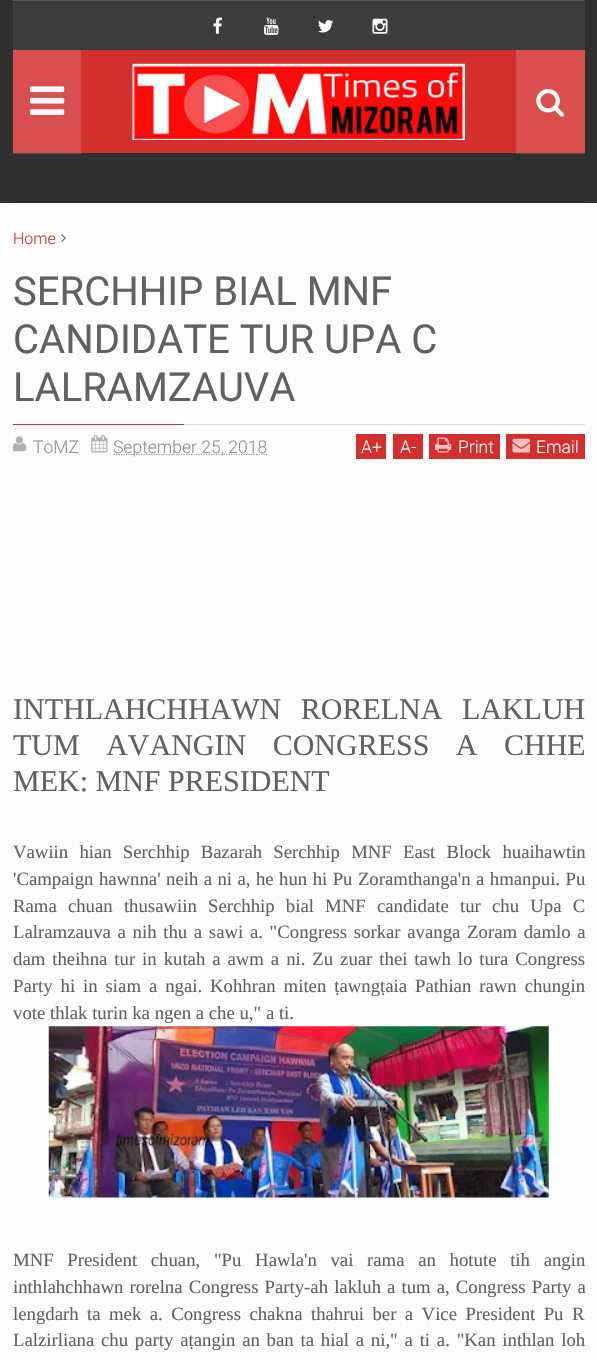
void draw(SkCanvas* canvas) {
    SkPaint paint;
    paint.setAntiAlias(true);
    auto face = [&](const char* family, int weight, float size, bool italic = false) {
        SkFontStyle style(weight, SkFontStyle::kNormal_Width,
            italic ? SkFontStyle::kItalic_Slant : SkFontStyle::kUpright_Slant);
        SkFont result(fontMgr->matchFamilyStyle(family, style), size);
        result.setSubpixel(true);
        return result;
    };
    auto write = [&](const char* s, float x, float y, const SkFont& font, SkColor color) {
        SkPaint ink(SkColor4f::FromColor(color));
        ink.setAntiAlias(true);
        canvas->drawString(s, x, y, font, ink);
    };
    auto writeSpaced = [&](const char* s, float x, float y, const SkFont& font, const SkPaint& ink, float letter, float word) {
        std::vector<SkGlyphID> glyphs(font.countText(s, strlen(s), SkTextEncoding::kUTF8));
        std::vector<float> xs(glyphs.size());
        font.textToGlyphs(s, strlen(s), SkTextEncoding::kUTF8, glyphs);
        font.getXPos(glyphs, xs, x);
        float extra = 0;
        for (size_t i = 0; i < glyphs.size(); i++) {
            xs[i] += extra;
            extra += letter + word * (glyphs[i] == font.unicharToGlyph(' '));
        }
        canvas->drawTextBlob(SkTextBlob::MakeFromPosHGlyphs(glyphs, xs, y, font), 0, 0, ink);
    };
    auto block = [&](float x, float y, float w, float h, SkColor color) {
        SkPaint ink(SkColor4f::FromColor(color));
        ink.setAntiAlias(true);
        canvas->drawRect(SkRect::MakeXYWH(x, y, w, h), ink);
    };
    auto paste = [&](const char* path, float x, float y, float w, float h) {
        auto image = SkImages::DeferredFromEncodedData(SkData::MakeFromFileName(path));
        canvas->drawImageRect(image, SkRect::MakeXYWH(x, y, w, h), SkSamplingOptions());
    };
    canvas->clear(SkColorSetRGB(253, 253, 253));
    block(0, 0, 597, 203, SkColorSetRGB(48, 48, 48));
    block(516, 153, 69, 1, SkColorSetRGB(79, 79, 79));
    block(13, 50, 503, 103, SkColorSetRGB(211, 47, 47));
    block(516, 50, 69, 103, SkColorSetRGB(218, 78, 78));
    block(13, 2, 572, 48, SkColorSetRGB(61, 61, 61));
    block(13, 0, 572, 1, SkColorSetRGB(90, 90, 90));
    block(13, 1, 572, 1, SkColorSetRGB(54, 54, 54));
    paste("pic1.png", 213, 17, 9, 17);
    paste("pic2.png", 264, 17, 15, 18);
    paste("pic3.png", 318, 20, 16, 13);
    paste("pic4.png", 372, 18, 16, 16);
    paste("pic5.png", 132, 63, 333, 77);
    block(13, 50, 68, 104, SkColorSetARGB(38, 255, 255, 255));
    paste("pic6.png", 30, 86, 35, 29);
    paste("pic7.png", 536, 88, 29, 29);
    block(13, 201, 572, 1, SkColorSetRGB(38, 38, 38));
    auto kFont1 = face("Roboto", 300, 16);
    write("Home", 13, 244, kFont1, SkColorSetRGB(211, 47, 47));
    paste("pic8.png", 61, 234, 5, 8);
    auto kFont2 = face("Roboto", 400, 40);
    write("SERCHHIP BIAL MNF", 13, 305, kFont2, SkColorSetRGB(97, 97, 97));
    write("CANDIDATE TUR UPA C", 13, 353, kFont2, SkColorSetRGB(97, 97, 97));
    write("LALRAMZAUVA", 13, 401, kFont2, SkColorSetRGB(97, 97, 97));
    block(13, 424, 171, 1, SkColorSetRGB(211, 47, 47));
    block(184, 424, 401, 1, SkColorSetRGB(219, 219, 219));
    paste("pic9.png", 13, 436, 14, 16);
    auto kFont3 = face("Roboto", 300, 17.5f);
    write("ToMZ", 33, 453, kFont3, SkColorSetRGB(144, 144, 144));
    paste("pic10.png", 91, 435, 17, 18);
    paint.setStyle(SkPaint::kStroke_Style);
    paint.setStrokeWidth(1.2f);
    paint.setColor(SkColorSetRGB(144, 144, 144));
    paint.setPathEffect(SkDashPathEffect::Make({{1.25f, 1.25f}}, 0));
    canvas->drawPath(SkPathBuilder().moveTo(113.5f, 454.5f).lineTo(267.5f, 454.5f).detach(), paint);
    paint.setPathEffect(nullptr);
    write("September 25, 2018", 113, 453, kFont3, SkColorSetRGB(144, 144, 144));
    block(356, 434, 30, 25, SkColorSetRGB(211, 47, 47));
    write("A+", 361, 453, kFont3, SK_ColorWHITE);
    block(393, 434, 30, 25, SkColorSetRGB(211, 47, 47));
    write("A-", 400, 453, kFont3, SK_ColorWHITE);
    block(429, 434, 71, 25, SkColorSetRGB(211, 47, 47));
    paste("pic11.png", 435, 437, 17, 16);
    write("Print", 458, 453, kFont3, SK_ColorWHITE);
    block(506, 434, 79, 25, SkColorSetRGB(211, 47, 47));
    paste("pic12.png", 512, 438, 18, 15);
    write("Email", 536, 453, kFont3, SK_ColorWHITE);
    auto kFont4 = face("Liberation Serif", 400, 30);
    paint.setStyle(SkPaint::kFill_Style);
    paint.setColor(SkColorSetRGB(97, 97, 97));
    writeSpaced("INTHLAHCHHAWN RORELNA LAKLUH", 13, 719, kFont4, paint, 0, 12);
    writeSpaced("TUM AVANGIN CONGRESS A CHHE", 13, 755, kFont4, paint, 0, 19);
    write("MEK: MNF PRESIDENT", 13, 791, kFont4, SkColorSetRGB(97, 97, 97));
    auto kFont5 = face("Liberation Serif", 400, 18.75f);
    writeSpaced("Vawiin hian Serchhip Bazarah Serchhip MNF East Block huaihawtin", 13, 858, kFont5, paint, 0, 6.5f);
    writeSpaced("'Campaign hawnna' neih a ni a, he hun hi Pu Zoramthanga'n a hmanpui. Pu", 13, 885, kFont5, paint, 0, 0.75f);
    writeSpaced("Rama chuan thusawiin Serchhip bial MNF candidate tur chu Upa C", 13, 912, kFont5, paint, 0, 6.5f);
    writeSpaced("Lalramzauva a nih thu a sawi a. \"Congress sorkar avanga Zoram damlo a", 13, 938, kFont5, paint, 0, 2);
    writeSpaced("dam theihna tur in kutah a awm a ni. Zu zuar thei tawh lo tura Congress", 13, 965, kFont5, paint, 0, 2.25f);
    writeSpaced("Party hi in siam a ngai. Kohhran miten ṭawngṭaia Pathian rawn chungin", 13, 992, kFont5, paint, 0, 3.25f);
    write("vote thlak turin ka ngen a che u,\" a ti.", 13, 1019, kFont5, SkColorSetRGB(97, 97, 97));
    paste("pic13.png", 48, 1026, 501, 172);
    writeSpaced("MNF President chuan, \"Pu Hawla'n vai rama an hotute tih angin", 13, 1266, kFont5, paint, 0, 9);
    writeSpaced("inthlahchhawn rorelna Congress Party-ah lakluh a tum a, Congress Party a", 13, 1293, kFont5, paint, 0, 1.4f);
    writeSpaced("lengdarh ta mek a. Congress chakna thahrui ber a Vice President Pu R", 13, 1320, kFont5, paint, 0, 3.75f);
    writeSpaced("Lalzirliana chu party aṭangin an ban ta hial a ni,\" a ti a. \"Kan inthlan loh", 13, 1346, kFont5, paint, 0, 2.1f);
}
